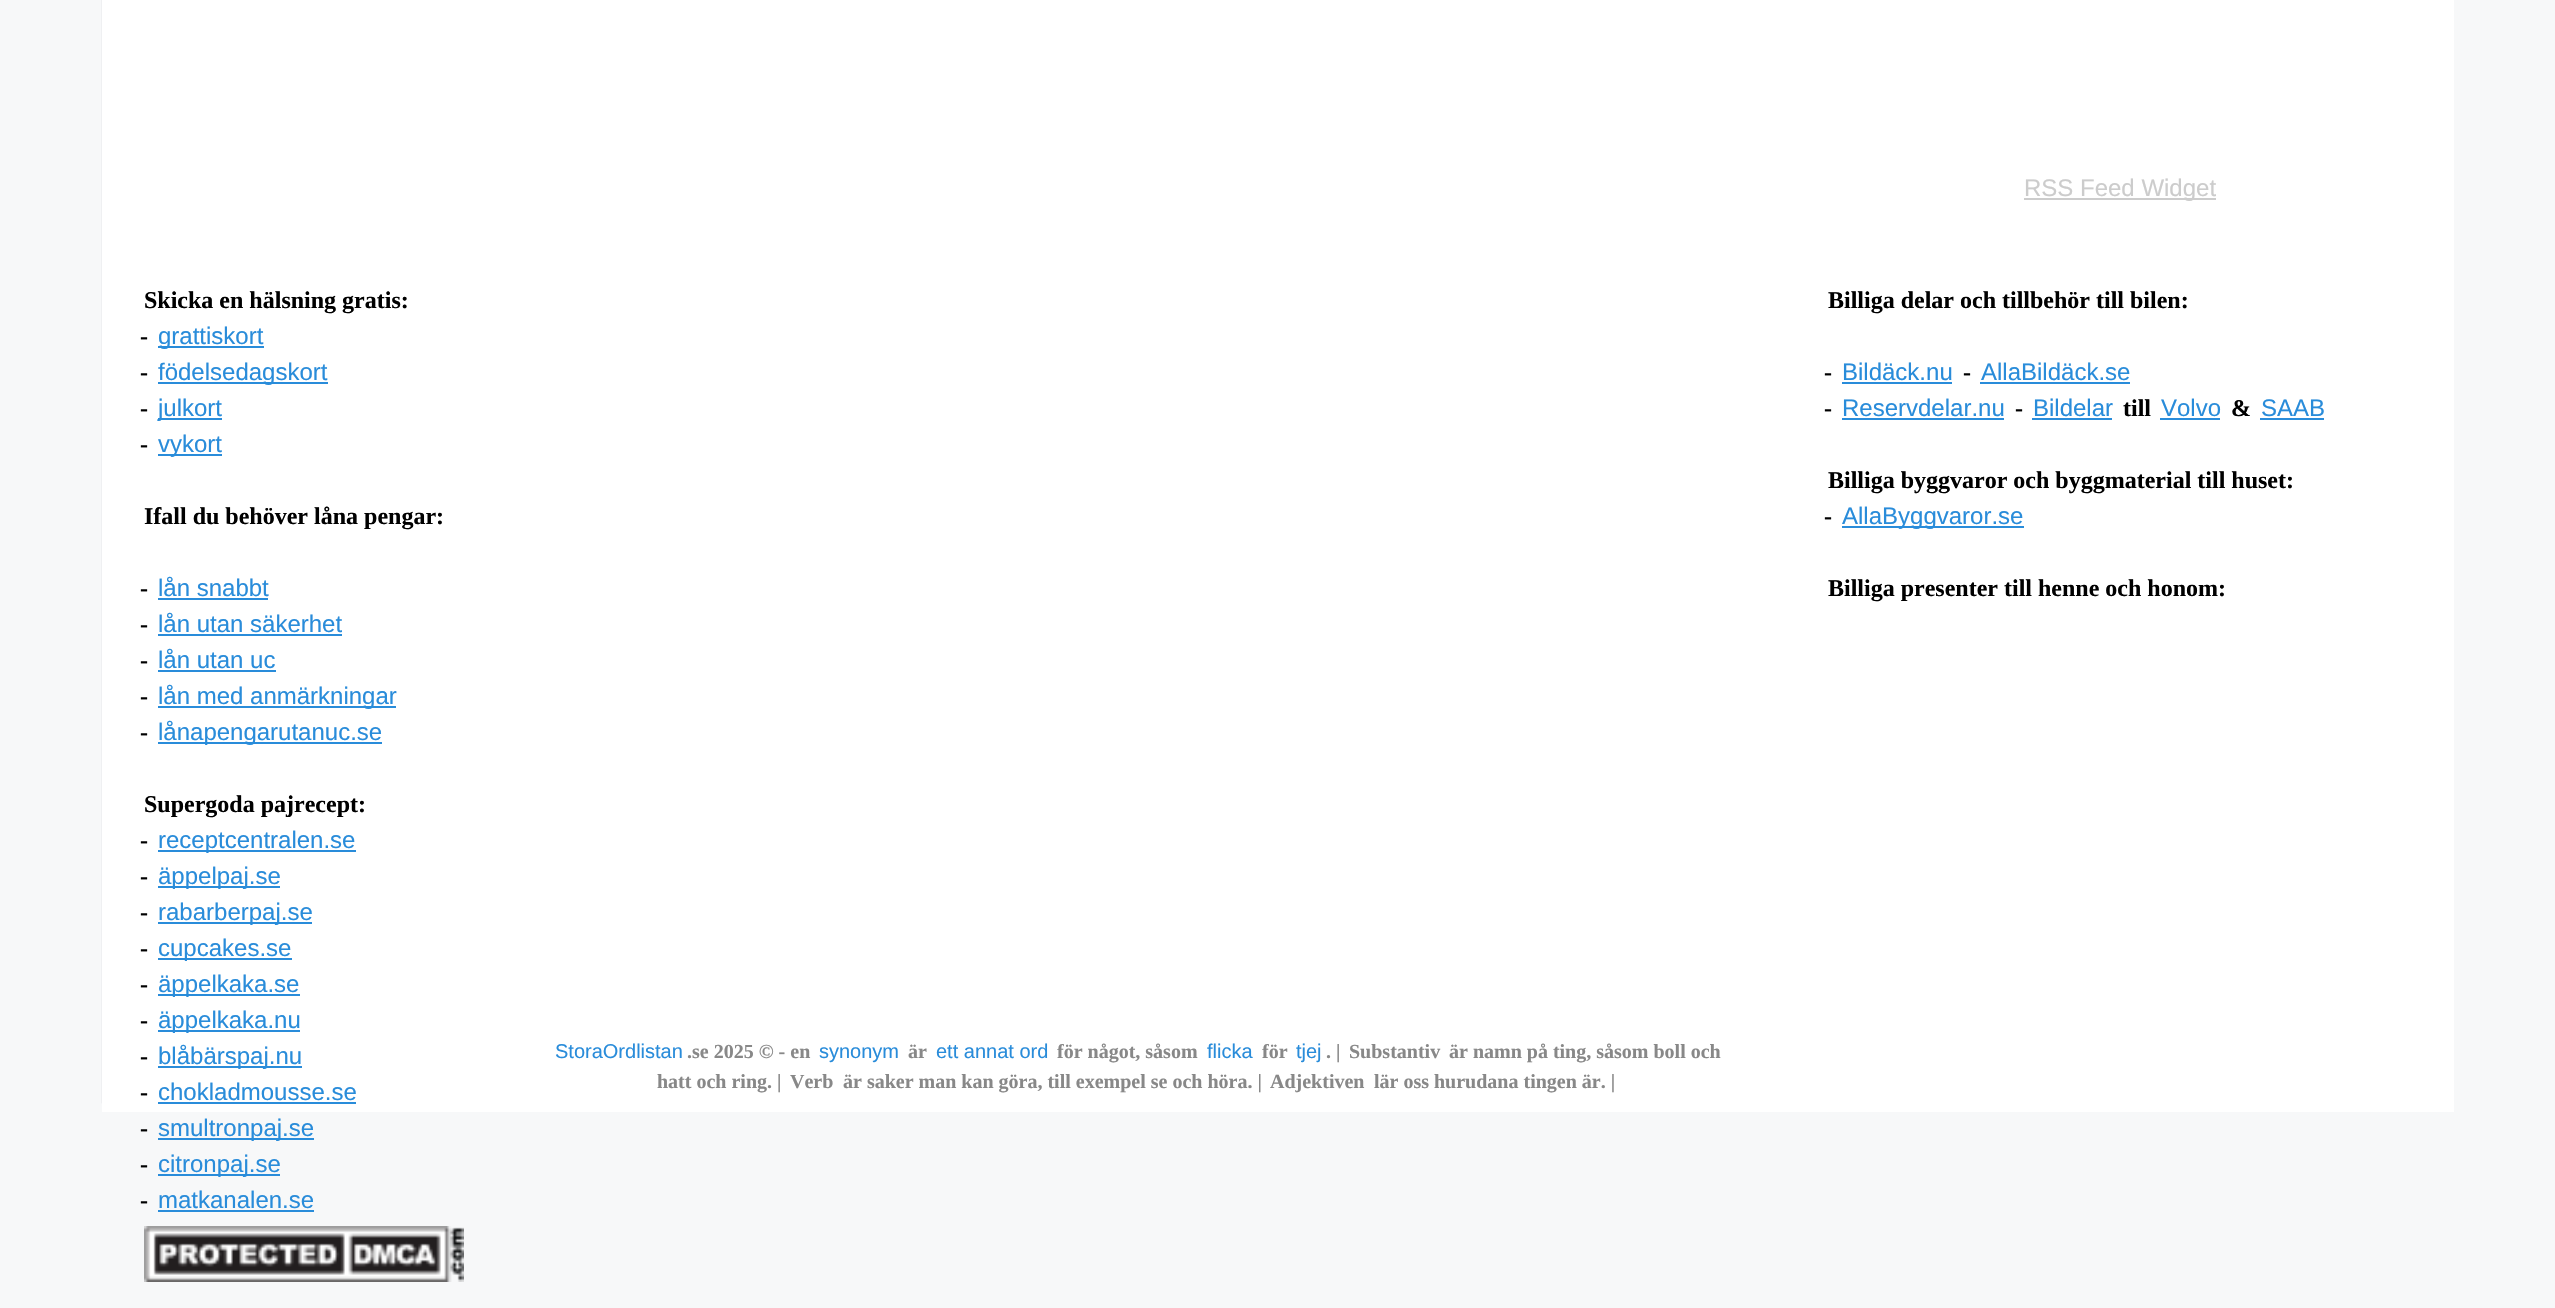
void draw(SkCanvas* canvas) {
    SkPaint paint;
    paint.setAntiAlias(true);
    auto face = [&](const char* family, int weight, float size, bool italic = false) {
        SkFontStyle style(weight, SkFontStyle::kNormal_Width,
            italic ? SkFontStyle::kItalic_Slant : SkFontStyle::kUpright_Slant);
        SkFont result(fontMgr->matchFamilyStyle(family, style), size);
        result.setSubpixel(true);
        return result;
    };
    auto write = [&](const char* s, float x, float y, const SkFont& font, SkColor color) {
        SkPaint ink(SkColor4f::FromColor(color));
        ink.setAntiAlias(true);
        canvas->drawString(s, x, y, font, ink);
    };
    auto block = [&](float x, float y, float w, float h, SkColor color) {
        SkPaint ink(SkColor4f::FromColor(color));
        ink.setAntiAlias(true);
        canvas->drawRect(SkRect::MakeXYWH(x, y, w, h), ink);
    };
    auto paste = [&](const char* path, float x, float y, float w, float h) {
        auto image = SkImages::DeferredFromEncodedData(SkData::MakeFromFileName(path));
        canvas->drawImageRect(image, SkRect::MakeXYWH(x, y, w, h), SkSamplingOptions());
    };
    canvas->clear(SkColorSetRGB(247, 248, 249));
    paste("pic1.png", 101, 0, 1, 1104);
    block(102, 0, 2352, 1112, SK_ColorWHITE);
    auto kFont1 = face("Liberation Serif", 700, 24);
    write("Skicka en hälsning gratis:", 144, 308, kFont1, SK_ColorBLACK);
    write("-", 140, 344, kFont1, SK_ColorBLACK);
    block(158, 346, 106, 2, SkColorSetRGB(41, 140, 218));
    auto kFont2 = face("Liberation Sans", 400, 24);
    write("grattiskort", 158, 344, kFont2, SkColorSetRGB(41, 140, 218));
    write("-", 140, 380, kFont1, SK_ColorBLACK);
    block(158, 382, 170, 2, SkColorSetRGB(41, 140, 218));
    write("födelsedagskort", 158, 380, kFont2, SkColorSetRGB(41, 140, 218));
    write("-", 140, 416, kFont1, SK_ColorBLACK);
    block(158, 418, 64, 2, SkColorSetRGB(41, 140, 218));
    write("julkort", 158, 416, kFont2, SkColorSetRGB(41, 140, 218));
    write("-", 140, 452, kFont1, SK_ColorBLACK);
    block(158, 454, 64, 2, SkColorSetRGB(41, 140, 218));
    write("vykort", 158, 452, kFont2, SkColorSetRGB(41, 140, 218));
    write("Ifall du behöver låna pengar:", 144, 524, kFont1, SK_ColorBLACK);
    write("-", 140, 596, kFont1, SK_ColorBLACK);
    write("lån snabbt", 158, 596, kFont2, SkColorSetRGB(41, 140, 218));
    block(158, 598, 110, 2, SkColorSetRGB(41, 140, 218));
    write("-", 140, 632, kFont1, SK_ColorBLACK);
    write("lån utan säkerhet", 158, 632, kFont2, SkColorSetRGB(41, 140, 218));
    block(158, 634, 184, 2, SkColorSetRGB(41, 140, 218));
    write("-", 140, 668, kFont1, SK_ColorBLACK);
    write("lån utan uc", 158, 668, kFont2, SkColorSetRGB(41, 140, 218));
    block(158, 670, 118, 2, SkColorSetRGB(41, 140, 218));
    write("-", 140, 704, kFont1, SK_ColorBLACK);
    block(158, 706, 238, 2, SkColorSetRGB(41, 140, 218));
    write("lån med anmärkningar", 158, 704, kFont2, SkColorSetRGB(41, 140, 218));
    write("-", 140, 740, kFont1, SK_ColorBLACK);
    block(158, 742, 224, 2, SkColorSetRGB(41, 140, 218));
    write("lånapengarutanuc.se", 158, 740, kFont2, SkColorSetRGB(41, 140, 218));
    write("Supergoda pajrecept:", 144, 812, kFont1, SK_ColorBLACK);
    write("-", 140, 848, kFont1, SK_ColorBLACK);
    block(158, 850, 198, 2, SkColorSetRGB(41, 140, 218));
    write("receptcentralen.se", 158, 848, kFont2, SkColorSetRGB(41, 140, 218));
    write("-", 140, 884, kFont1, SK_ColorBLACK);
    block(158, 886, 122, 2, SkColorSetRGB(41, 140, 218));
    write("äppelpaj.se", 158, 884, kFont2, SkColorSetRGB(41, 140, 218));
    write("-", 140, 920, kFont1, SK_ColorBLACK);
    block(158, 922, 154, 2, SkColorSetRGB(41, 140, 218));
    write("rabarberpaj.se", 158, 920, kFont2, SkColorSetRGB(41, 140, 218));
    write("-", 140, 956, kFont1, SK_ColorBLACK);
    block(158, 958, 134, 2, SkColorSetRGB(41, 140, 218));
    write("cupcakes.se", 158, 956, kFont2, SkColorSetRGB(41, 140, 218));
    write("-", 140, 992, kFont1, SK_ColorBLACK);
    block(158, 994, 142, 2, SkColorSetRGB(41, 140, 218));
    write("äppelkaka.se", 158, 992, kFont2, SkColorSetRGB(41, 140, 218));
    write("-", 140, 1028, kFont1, SK_ColorBLACK);
    block(158, 1030, 142, 2, SkColorSetRGB(41, 140, 218));
    write("äppelkaka.nu", 158, 1028, kFont2, SkColorSetRGB(41, 140, 218));
    write("-", 140, 1064, kFont1, SK_ColorBLACK);
    block(158, 1066, 144, 2, SkColorSetRGB(41, 140, 218));
    write("blåbärspaj.nu", 158, 1064, kFont2, SkColorSetRGB(41, 140, 218));
    write("-", 140, 1100, kFont1, SK_ColorBLACK);
    write("chokladmousse.se", 158, 1100, kFont2, SkColorSetRGB(41, 140, 218));
    block(158, 1102, 198, 2, SkColorSetRGB(41, 140, 218));
    write("-", 140, 1136, kFont1, SK_ColorBLACK);
    block(158, 1138, 156, 2, SkColorSetRGB(41, 140, 218));
    write("smultronpaj.se", 158, 1136, kFont2, SkColorSetRGB(41, 140, 218));
    write("-", 140, 1172, kFont1, SK_ColorBLACK);
    block(158, 1174, 122, 2, SkColorSetRGB(41, 140, 218));
    write("citronpaj.se", 158, 1172, kFont2, SkColorSetRGB(41, 140, 218));
    write("-", 140, 1208, kFont1, SK_ColorBLACK);
    write("matkanalen.se", 158, 1208, kFont2, SkColorSetRGB(41, 140, 218));
    block(158, 1210, 156, 2, SkColorSetRGB(41, 140, 218));
    paste("pic2.png", 144, 1226, 320, 56);
    block(2024, 198, 192, 2, SkColorSetRGB(204, 204, 204));
    write("RSS Feed Widget", 2024, 196, kFont2, SkColorSetRGB(204, 204, 204));
    write("Billiga delar och tillbehör till bilen:", 1828, 308, kFont1, SK_ColorBLACK);
    write("-", 1824, 380, kFont1, SK_ColorBLACK);
    write("Bildäck.nu", 1842, 380, kFont2, SkColorSetRGB(41, 140, 218));
    block(1842, 382, 110, 2, SkColorSetRGB(41, 140, 218));
    write("-", 1963, 380, kFont1, SK_ColorBLACK);
    write("AllaBildäck.se", 1981, 380, kFont2, SkColorSetRGB(41, 140, 218));
    block(1980, 382, 150, 2, SkColorSetRGB(41, 140, 218));
    write("-", 1824, 416, kFont1, SK_ColorBLACK);
    write("Reservdelar.nu", 1842, 416, kFont2, SkColorSetRGB(41, 140, 218));
    block(1842, 418, 162, 2, SkColorSetRGB(41, 140, 218));
    write("-", 2015, 416, kFont1, SK_ColorBLACK);
    write("Bildelar", 2033, 416, kFont2, SkColorSetRGB(41, 140, 218));
    block(2032, 418, 80, 2, SkColorSetRGB(41, 140, 218));
    write("till", 2123, 416, kFont1, SK_ColorBLACK);
    write("Volvo", 2161, 416, kFont2, SkColorSetRGB(41, 140, 218));
    block(2160, 418, 60, 2, SkColorSetRGB(41, 140, 218));
    write("&", 2231, 416, kFont1, SK_ColorBLACK);
    write("SAAB", 2261, 416, kFont2, SkColorSetRGB(41, 140, 218));
    block(2260, 418, 64, 2, SkColorSetRGB(41, 140, 218));
    write("Billiga byggvaror och byggmaterial till huset:", 1828, 488, kFont1, SK_ColorBLACK);
    write("-", 1824, 524, kFont1, SK_ColorBLACK);
    block(1842, 526, 182, 2, SkColorSetRGB(41, 140, 218));
    write("AllaByggvaror.se", 1842, 524, kFont2, SkColorSetRGB(41, 140, 218));
    write("Billiga presenter till henne och honom:", 1828, 596, kFont1, SK_ColorBLACK);
    auto kFont3 = face("Liberation Sans", 400, 20);
    write("StoraOrdlistan", 555, 1058, kFont3, SkColorSetRGB(41, 140, 218));
    auto kFont4 = face("Liberation Serif", 700, 20);
    write(".se 2025 © - en", 687, 1058, kFont4, SkColorSetRGB(136, 136, 136));
    write("synonym", 819, 1058, kFont3, SkColorSetRGB(41, 140, 218));
    write("är", 908, 1058, kFont4, SkColorSetRGB(136, 136, 136));
    write("ett annat ord", 936, 1058, kFont3, SkColorSetRGB(41, 140, 218));
    write("för något, såsom", 1057, 1058, kFont4, SkColorSetRGB(136, 136, 136));
    write("flicka", 1207, 1058, kFont3, SkColorSetRGB(41, 140, 218));
    write("för", 1262, 1058, kFont4, SkColorSetRGB(136, 136, 136));
    write("tjej", 1296, 1058, kFont3, SkColorSetRGB(41, 140, 218));
    write(". |", 1326, 1058, kFont4, SkColorSetRGB(136, 136, 136));
    write("Substantiv", 1349, 1058, kFont4, SkColorSetRGB(136, 136, 136));
    write("är namn på ting, såsom boll och", 1449, 1058, kFont4, SkColorSetRGB(136, 136, 136));
    write("hatt och ring. |", 657, 1088, kFont4, SkColorSetRGB(136, 136, 136));
    write("Verb", 790, 1088, kFont4, SkColorSetRGB(136, 136, 136));
    write("är saker man kan göra, till exempel se och höra. |", 843, 1088, kFont4, SkColorSetRGB(136, 136, 136));
    write("Adjektiven", 1270, 1088, kFont4, SkColorSetRGB(136, 136, 136));
    write("lär oss hurudana tingen är. |", 1374, 1088, kFont4, SkColorSetRGB(136, 136, 136));
}
